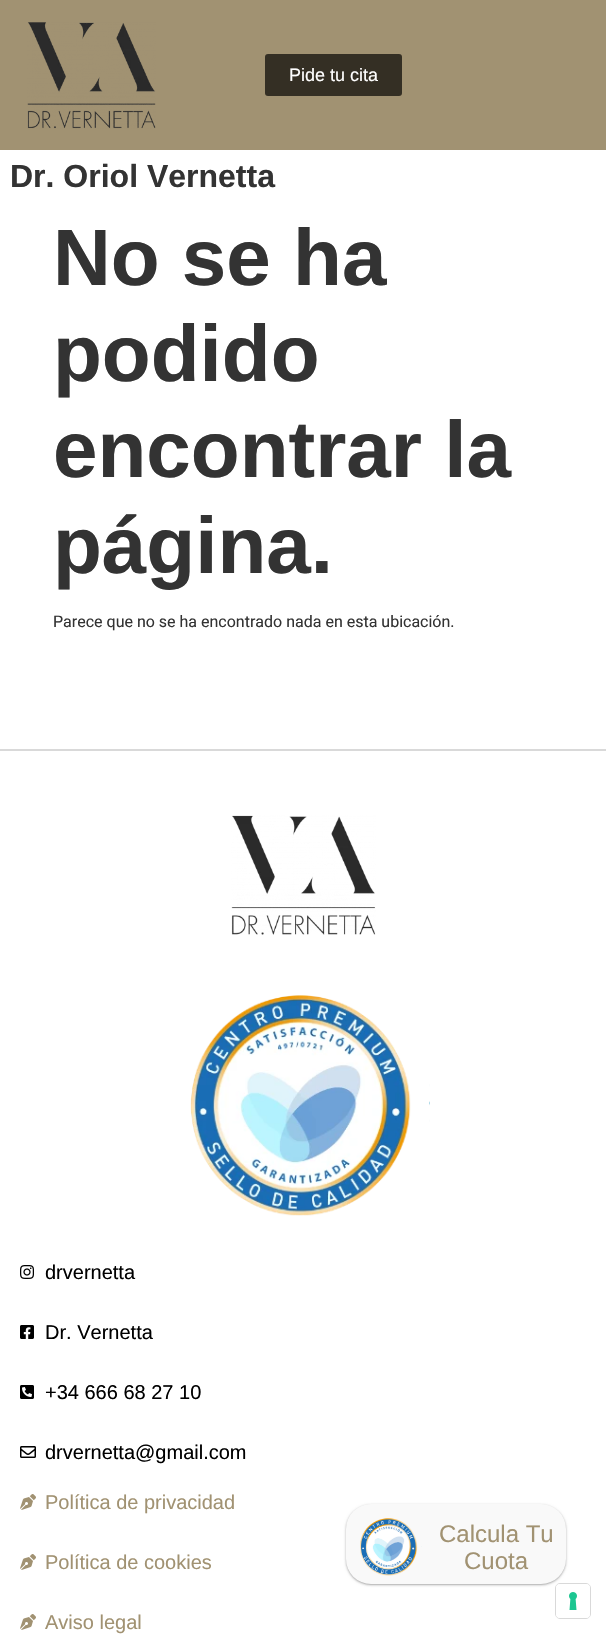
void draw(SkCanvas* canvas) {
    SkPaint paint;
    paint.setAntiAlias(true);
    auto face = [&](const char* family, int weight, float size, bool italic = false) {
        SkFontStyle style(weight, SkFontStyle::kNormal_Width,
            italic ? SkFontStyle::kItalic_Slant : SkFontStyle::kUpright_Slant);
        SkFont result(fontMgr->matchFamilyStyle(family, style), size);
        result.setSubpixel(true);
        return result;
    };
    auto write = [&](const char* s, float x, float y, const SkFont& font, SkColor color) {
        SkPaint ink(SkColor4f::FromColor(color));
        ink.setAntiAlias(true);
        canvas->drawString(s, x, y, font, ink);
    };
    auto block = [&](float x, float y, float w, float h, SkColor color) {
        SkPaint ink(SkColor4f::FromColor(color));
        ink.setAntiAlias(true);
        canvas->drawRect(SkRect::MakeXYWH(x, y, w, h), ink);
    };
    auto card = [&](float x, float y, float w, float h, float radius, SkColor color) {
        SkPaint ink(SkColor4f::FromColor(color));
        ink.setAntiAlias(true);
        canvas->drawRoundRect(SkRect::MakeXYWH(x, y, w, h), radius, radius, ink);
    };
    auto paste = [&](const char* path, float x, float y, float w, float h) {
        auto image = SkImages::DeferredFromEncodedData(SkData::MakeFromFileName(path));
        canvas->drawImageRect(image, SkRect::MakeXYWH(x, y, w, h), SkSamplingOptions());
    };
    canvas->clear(SK_ColorWHITE);
    block(0, 0, 606, 150, SkColorSetRGB(161, 146, 114));
    paste("pic1.png", 27, 22, 129, 107);
    card(265, 54, 137, 42, 3, SkColorSetRGB(52, 47, 36));
    auto kFont1 = face("Liberation Sans", 400, 18);
    write("Pide tu cita", 289, 81, kFont1, SK_ColorWHITE);
    auto kFont2 = face("Liberation Sans", 700, 32);
    write("Dr. Oriol Vernetta", 10, 187, kFont2, SkColorSetRGB(51, 51, 51));
    auto kFont3 = face("Liberation Sans", 700, 80);
    write("No se ha", 53, 285, kFont3, SkColorSetRGB(51, 51, 51));
    write("podido", 53, 381, kFont3, SkColorSetRGB(51, 51, 51));
    write("encontrar la", 53, 477, kFont3, SkColorSetRGB(51, 51, 51));
    write("página.", 53, 573, kFont3, SkColorSetRGB(51, 51, 51));
    auto kFont4 = face("Roboto", 400, 16);
    write("Parece que no se ha encontrado nada en esta ubicación.", 53, 627, kFont4, SkColorSetRGB(51, 51, 51));
    block(0, 749, 606, 2, SkColorSetRGB(217, 217, 217));
    paste("pic2.png", 231, 815, 145, 120);
    paste("pic3.png", 190, 995, 240, 221);
    paste("pic4.png", 20, 1265, 14, 14);
    auto kFont5 = face("Liberation Sans", 400, 20);
    write("drvernetta", 45, 1279, kFont5, SK_ColorBLACK);
    paste("pic5.png", 20, 1325, 14, 14);
    write("Dr. Vernetta", 45, 1339, kFont5, SK_ColorBLACK);
    paste("pic6.png", 20, 1385, 14, 14);
    write("+34 666 68 27 10", 45, 1399, kFont5, SK_ColorBLACK);
    paste("pic7.png", 20, 1446, 16, 12);
    write("drvernetta@gmail.com", 45, 1459, kFont5, SK_ColorBLACK);
    paste("pic8.png", 20, 1494, 16, 16);
    write("Política de privacidad", 45, 1509, kFont5, SkColorSetRGB(161, 146, 114));
    paste("pic8.png", 20, 1554, 16, 16);
    write("Política de cookies", 45, 1569, kFont5, SkColorSetRGB(161, 146, 114));
    paste("pic8.png", 20, 1614, 16, 16);
    write("Aviso legal", 45, 1629, kFont5, SkColorSetRGB(161, 146, 114));
    paint.setColor(SkColorSetARGB(61, 0, 0, 0));
    paint.setMaskFilter(SkMaskFilter::MakeBlur(kNormal_SkBlurStyle, 1));
    canvas->drawRoundRect(SkRect::MakeXYWH(346, 1505, 220, 80), 25, 25, paint);
    paint.setMaskFilter(nullptr);
    paint.setColor(SkColorSetARGB(31, 0, 0, 0));
    paint.setMaskFilter(SkMaskFilter::MakeBlur(kNormal_SkBlurStyle, 1.5f));
    canvas->drawRoundRect(SkRect::MakeXYWH(346, 1505, 220, 80), 25, 25, paint);
    paint.setMaskFilter(nullptr);
    card(346, 1504, 220, 80, 25, SkColorSetRGB(249, 249, 249));
    paste("pic9.png", 360, 1518, 62, 58);
    auto kFont6 = face("Liberation Sans", 400, 24);
    write("Calcula Tu", 439, 1542, kFont6, SkColorSetRGB(161, 146, 114));
    write("Cuota", 464, 1569, kFont6, SkColorSetRGB(161, 146, 114));
    paint.setStyle(SkPaint::kStroke_Style);
    paint.setStrokeWidth(1);
    paint.setColor(SkColorSetRGB(217, 217, 217));
    canvas->drawRoundRect(SkRect::MakeXYWH(555.5f, 1583.5f, 35, 35), 4.5f, 4.5f, paint);
    card(556, 1584, 34, 34, 4, SK_ColorWHITE);
    paste("pic10.png", 569, 1592, 8, 18);
}
